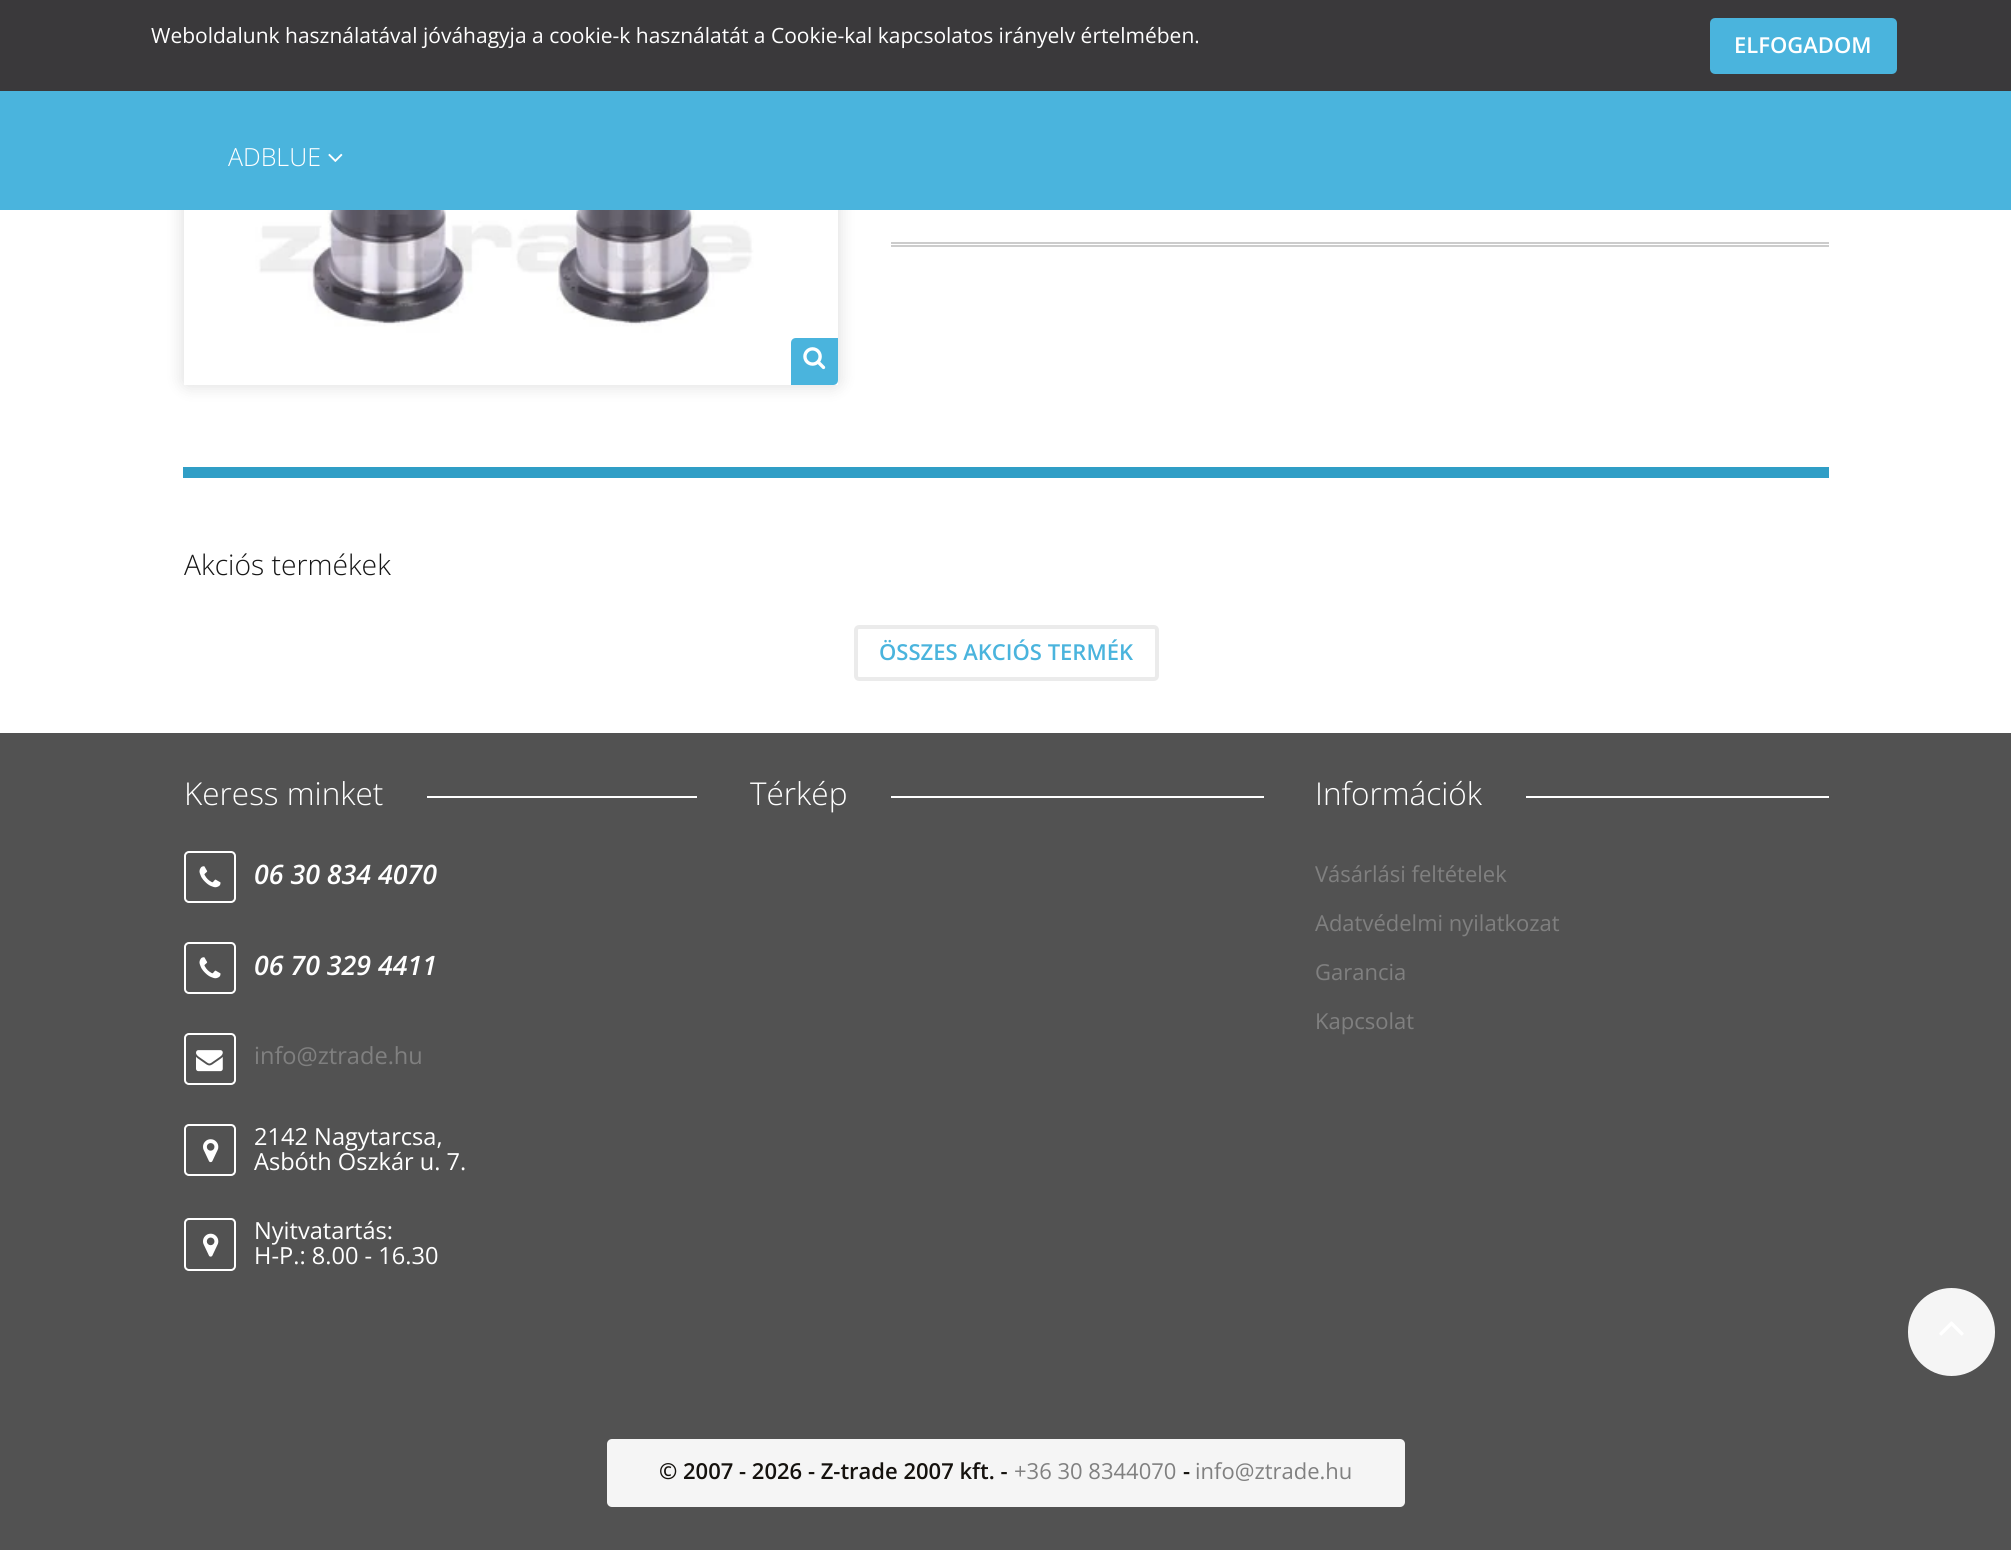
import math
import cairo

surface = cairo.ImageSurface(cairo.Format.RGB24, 2011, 1550)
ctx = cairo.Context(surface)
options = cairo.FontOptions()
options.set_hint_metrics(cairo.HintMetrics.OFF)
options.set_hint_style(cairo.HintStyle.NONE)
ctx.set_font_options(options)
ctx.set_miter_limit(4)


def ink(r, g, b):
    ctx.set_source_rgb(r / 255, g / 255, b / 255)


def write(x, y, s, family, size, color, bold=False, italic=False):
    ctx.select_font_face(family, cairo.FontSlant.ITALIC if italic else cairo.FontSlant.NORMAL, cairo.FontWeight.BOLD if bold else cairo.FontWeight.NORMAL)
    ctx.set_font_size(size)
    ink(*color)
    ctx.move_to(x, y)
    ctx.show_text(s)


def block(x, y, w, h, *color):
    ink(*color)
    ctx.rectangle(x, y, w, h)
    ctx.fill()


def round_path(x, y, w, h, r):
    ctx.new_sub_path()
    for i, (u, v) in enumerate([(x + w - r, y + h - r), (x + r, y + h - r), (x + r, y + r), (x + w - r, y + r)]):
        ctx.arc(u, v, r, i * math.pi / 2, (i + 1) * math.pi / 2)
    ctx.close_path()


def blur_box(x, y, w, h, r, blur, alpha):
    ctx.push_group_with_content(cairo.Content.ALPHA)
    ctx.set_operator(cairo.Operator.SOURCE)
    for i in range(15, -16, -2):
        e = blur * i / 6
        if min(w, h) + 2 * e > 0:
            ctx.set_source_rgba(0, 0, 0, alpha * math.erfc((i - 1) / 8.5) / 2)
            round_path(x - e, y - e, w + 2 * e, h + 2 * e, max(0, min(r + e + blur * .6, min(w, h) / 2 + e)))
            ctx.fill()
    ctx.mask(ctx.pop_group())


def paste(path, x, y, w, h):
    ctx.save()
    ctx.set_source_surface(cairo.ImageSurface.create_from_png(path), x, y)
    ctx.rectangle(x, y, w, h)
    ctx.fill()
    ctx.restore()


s1 = dict(family="Open Sans", size=21, color=(255, 255, 255))
s2 = dict(family="Open Sans SemiBold", size=22, color=(255, 255, 255))
s3 = dict(family="Open Sans Light", size=25, color=(255, 255, 255))
s4 = dict(family="Open Sans Light", size=28.25, color=(23, 23, 23))
s5 = dict(family="Open Sans SemiBold", size=22, color=(74, 180, 221))
s6 = dict(family="Open Sans Light", size=31.5, color=(255, 255, 255))
s7 = dict(family="Open Sans SemiBold", size=26.75, color=(255, 255, 255), italic=True)
s8 = dict(family="Open Sans", size=23.6, color=(128, 128, 128))
s9 = dict(family="Open Sans", size=23.6, color=(255, 255, 255))
s10 = dict(family="Open Sans", size=22, color=(128, 128, 128))
s11 = dict(family="Open Sans SemiBold", size=22, color=(21, 18, 14))

ink(255, 255, 255)
ctx.paint()
ink(0, 0, 0)
blur_box(180, -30, 662, 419, 9, 7, 0.1)
block(0, 0, 2011, 91, 58, 57, 59)
write(151, 43, "Weboldalunk használatával jóváhagyja a cookie-k használatát a Cookie-kal kapcsolatos irányelv értelmében.", **s1)
ink(74, 180, 221)
round_path(1712, 20, 183, 52, 3)
ctx.fill_preserve()
ctx.set_line_width(4)
ctx.stroke()
write(1734, 53, "ELFOGADOM", **s2)
paste("pic1.png", 184, 210, 654, 175)
ink(74, 180, 221)
ctx.new_path()
ctx.move_to(796, 338)
ctx.line_to(838, 338)
ctx.line_to(838, 380)
ctx.curve_to(838, 383, 836, 385, 833, 385)
ctx.line_to(791, 385)
ctx.line_to(791, 343)
ctx.curve_to(791, 340, 793, 338, 796, 338)
ctx.close_path()
ctx.fill()
paste("pic2.png", 803, 347, 23, 23)
block(891, 242, 938, 2, 204, 204, 204)
block(891, 245, 938, 2, 204, 204, 204)
block(0, 91, 2011, 119, 74, 180, 221)
write(228, 166, "ADBLUE", **s3)
paste("pic3.png", 328, 153, 15, 9)
block(183, 467, 1646, 11, 48, 158, 198)
write(184, 575, "Akciós termékek", **s4)
round_path(856, 627, 301, 52, 3)
ink(235, 235, 235)
ctx.stroke()
write(879, 660, "ÖSSZES AKCIÓS TERMÉK", **s5)
block(0, 733, 2011, 817, 82, 82, 82)
write(184, 805, "Keress minket", **s6)
block(427, 796, 270, 2, 255, 255, 255)
round_path(185, 852, 50, 50, 4)
ctx.set_line_width(2)
ctx.stroke()
paste("pic4.png", 199, 866, 22, 22)
write(254, 884, "06 30 834 4070", **s7)
round_path(185, 943, 50, 50, 4)
ctx.stroke()
paste("pic4.png", 199, 957, 22, 22)
write(254, 975, "06 70 329 4411", **s7)
round_path(185, 1034, 50, 50, 4)
ctx.stroke()
paste("pic5.png", 196, 1050, 27, 22)
write(254, 1064, "info@ztrade.hu", **s8)
round_path(185, 1125, 50, 50, 4)
ink(255, 255, 255)
ctx.stroke()
paste("pic6.png", 203, 1139, 16, 24)
write(254, 1145, "2142 Nagytarcsa,", **s9)
write(254, 1170, "Asbóth Oszkár u. 7.", **s9)
round_path(185, 1219, 50, 51, 4)
ctx.stroke()
paste("pic7.png", 203, 1233, 16, 24)
write(254, 1239, "Nyitvatartás:", **s9)
write(254, 1264, "H-P.: 8.00 - 16.30", **s9)
write(750, 805, "Térkép", **s6)
block(891, 796, 373, 2, 255, 255, 255)
write(1315, 805, "Információk", **s6)
block(1526, 796, 303, 2, 255, 255, 255)
write(1315, 882, "Vásárlási feltételek", **s10)
write(1315, 931, "Adatvédelmi nyilatkozat", **s10)
write(1315, 980, "Garancia", **s10)
write(1315, 1029, "Kapcsolat", **s10)
ink(245, 245, 245)
round_path(607, 1439, 798, 68, 5)
ctx.fill()
write(659, 1479, "© 2007 - 2026 - Z-trade 2007 kft. -", **s11)
write(1014, 1479, "+36 30 8344070", **s10)
write(1183, 1479, "-", **s11)
write(1195, 1479, "info@ztrade.hu", **s10)
ink(245, 245, 245)
round_path(1908, 1288, 87, 88, 43.5)
ctx.fill()
paste("pic8.png", 1939, 1321, 25, 15)
surface.write_to_png("screenshot.png")
